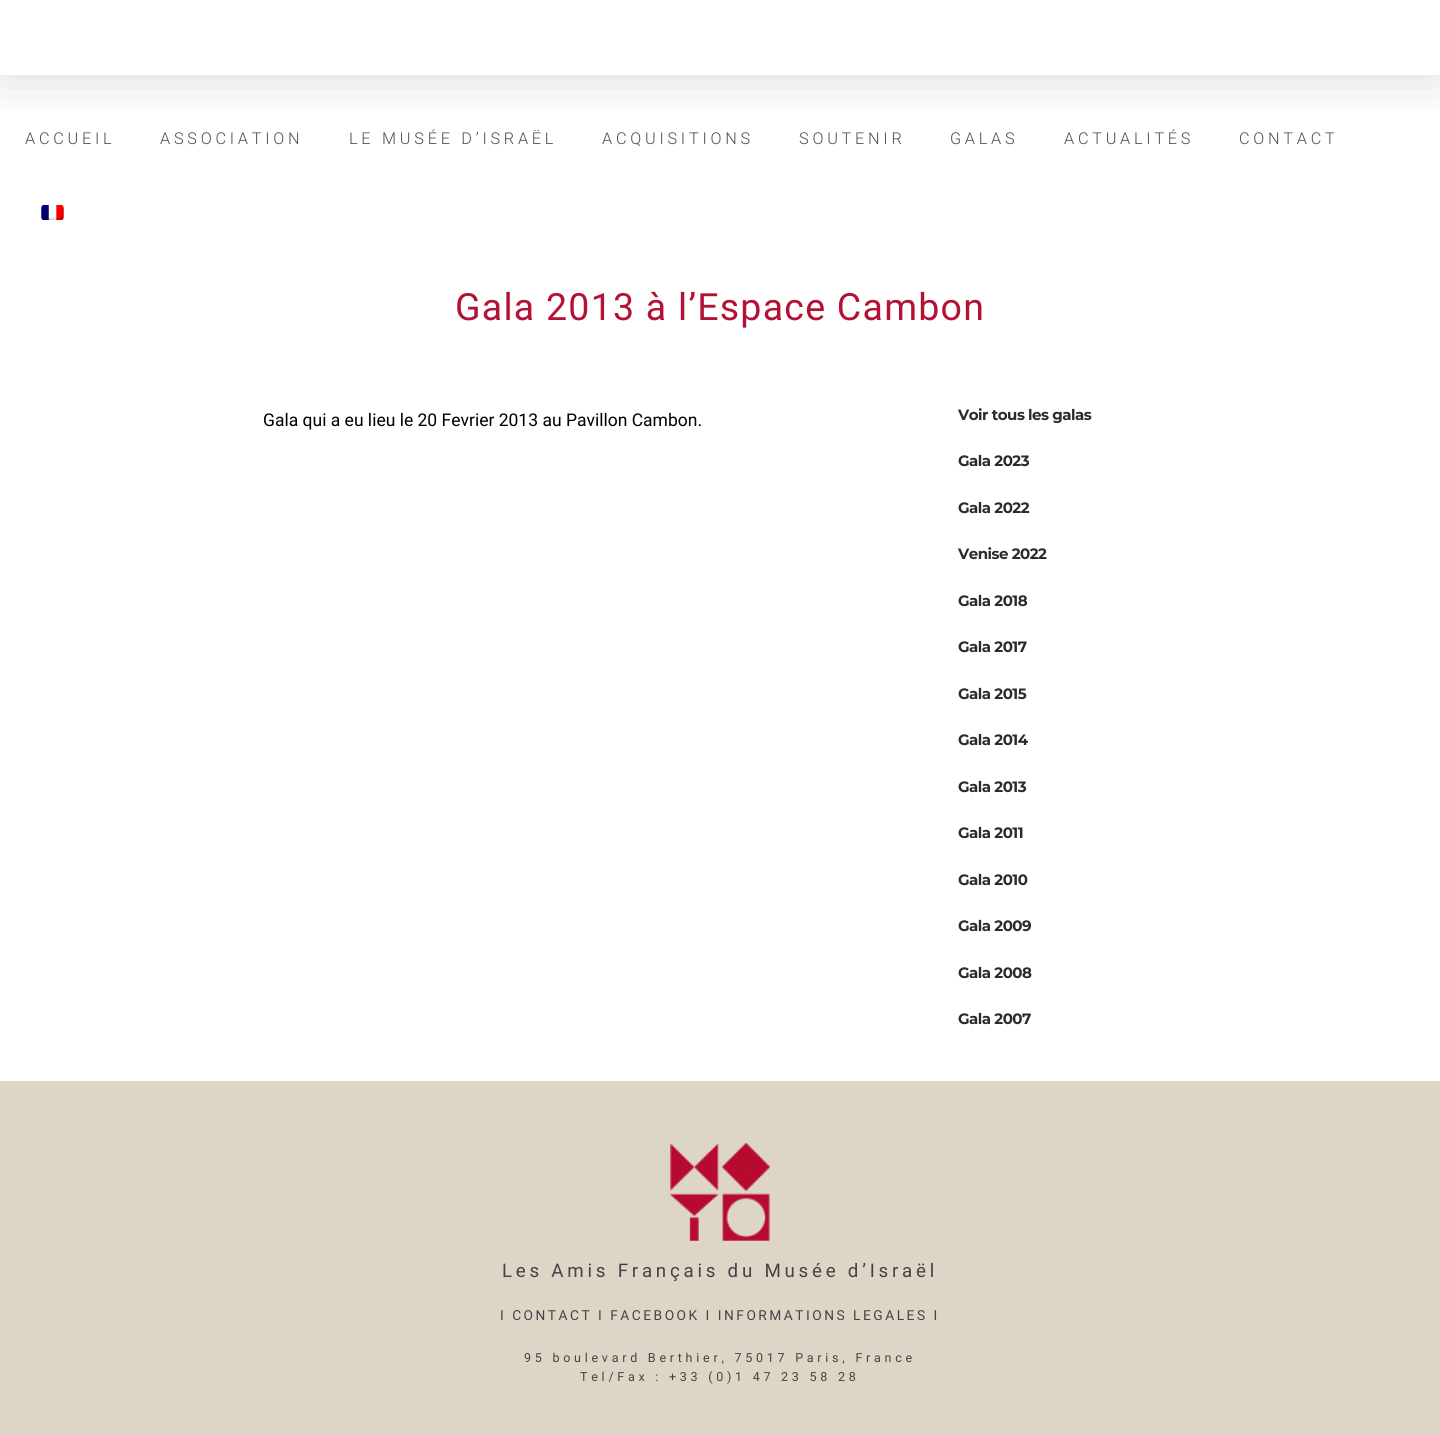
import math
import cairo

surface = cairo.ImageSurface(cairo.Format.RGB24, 1440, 1435)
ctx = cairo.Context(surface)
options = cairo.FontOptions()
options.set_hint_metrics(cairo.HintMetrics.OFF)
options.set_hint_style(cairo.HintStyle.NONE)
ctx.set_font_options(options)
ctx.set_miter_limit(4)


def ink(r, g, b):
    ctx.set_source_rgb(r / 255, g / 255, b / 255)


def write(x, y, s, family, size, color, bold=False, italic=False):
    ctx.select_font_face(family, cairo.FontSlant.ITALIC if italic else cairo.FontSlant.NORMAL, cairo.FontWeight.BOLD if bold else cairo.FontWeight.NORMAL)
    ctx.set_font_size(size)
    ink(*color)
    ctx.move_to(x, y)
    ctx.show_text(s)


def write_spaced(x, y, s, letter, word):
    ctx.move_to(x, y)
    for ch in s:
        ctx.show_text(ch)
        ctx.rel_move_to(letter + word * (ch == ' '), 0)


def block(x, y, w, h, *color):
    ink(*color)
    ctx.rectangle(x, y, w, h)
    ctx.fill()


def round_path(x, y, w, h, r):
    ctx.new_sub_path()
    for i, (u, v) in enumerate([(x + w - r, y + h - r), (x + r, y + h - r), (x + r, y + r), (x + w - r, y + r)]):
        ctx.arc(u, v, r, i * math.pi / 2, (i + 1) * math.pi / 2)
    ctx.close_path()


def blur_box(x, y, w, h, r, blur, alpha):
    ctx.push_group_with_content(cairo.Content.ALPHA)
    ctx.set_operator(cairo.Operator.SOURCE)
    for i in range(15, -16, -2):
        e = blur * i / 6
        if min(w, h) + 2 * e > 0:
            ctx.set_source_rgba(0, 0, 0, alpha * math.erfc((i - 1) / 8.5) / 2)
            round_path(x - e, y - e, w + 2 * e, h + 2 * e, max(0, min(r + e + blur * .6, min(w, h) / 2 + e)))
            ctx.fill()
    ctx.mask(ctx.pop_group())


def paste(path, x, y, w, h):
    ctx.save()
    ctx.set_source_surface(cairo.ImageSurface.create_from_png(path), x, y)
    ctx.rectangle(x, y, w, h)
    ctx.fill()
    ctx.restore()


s1 = dict(family="Roboto", size=17.5, color=(0, 0, 0))

ink(255, 255, 255)
ctx.paint()
ctx.save()
ctx.rectangle(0, 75, 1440, 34)
ctx.clip()
ink(0, 0, 0)
blur_box(0, 0, 1440, 75, 0, 31, 0.15)
ctx.restore()
ctx.select_font_face("Roboto Light")
ctx.set_font_size(16.25)
ink(82, 75, 75)
write_spaced(25, 144, "ACCUEIL", 3.75, 0)
write_spaced(160, 144, "ASSOCIATION", 3.75, 0)
write_spaced(349, 144, "LE MUSÉE D’ISRAËL", 3.75, 0)
write_spaced(602, 144, "ACQUISITIONS", 3.75, 0)
write_spaced(799, 144, "SOUTENIR", 3.75, 0)
write_spaced(950, 144, "GALAS", 3.75, 0)
write_spaced(1064, 144, "ACTUALITÉS", 3.75, 0)
write_spaced(1239, 144, "CONTACT", 3.75, 0)
paste("pic1.png", 41, 205, 23, 15)
ctx.select_font_face("Roboto")
ctx.set_font_size(37.5)
ink(181, 17, 52)
write_spaced(455, 320, "Gala 2013 à l’Espace Cambon", 1.25, 0)
write(263, 426, "Gala qui a eu lieu le 20 Fevrier 2013 au Pavillon Cambon.", **s1)
ctx.select_font_face("Montserrat", cairo.FontSlant.NORMAL, cairo.FontWeight.BOLD)
ctx.set_font_size(15)
ink(43, 43, 43)
write_spaced(958, 420, "Voir tous les galas", -0.5, 0)
write_spaced(958, 466, "Gala 2023", -0.5, 0)
write_spaced(958, 513, "Gala 2022", -0.5, 0)
write_spaced(958, 559, "Venise 2022", -0.5, 0)
write_spaced(958, 606, "Gala 2018", -0.5, 0)
write_spaced(958, 652, "Gala 2017", -0.5, 0)
write_spaced(958, 699, "Gala 2015", -0.5, 0)
write_spaced(958, 745, "Gala 2014", -0.5, 0)
write_spaced(958, 792, "Gala 2013", -0.5, 0)
write_spaced(958, 838, "Gala 2011", -0.5, 0)
write_spaced(958, 885, "Gala 2010", -0.5, 0)
write_spaced(958, 931, "Gala 2009", -0.5, 0)
write_spaced(958, 978, "Gala 2008", -0.5, 0)
write_spaced(958, 1024, "Gala 2007", -0.5, 0)
block(0, 1081, 1440, 354, 221, 214, 199)
paste("pic2.png", 670, 1143, 100, 98)
ctx.select_font_face("Roboto")
ctx.set_font_size(18.75)
ink(68, 68, 68)
write_spaced(502, 1277, "Les Amis Français du Musée d’Israël", 3.75, 0)
ctx.set_font_size(13.75)
write_spaced(500, 1320, "I CONTACT I FACEBOOK I INFORMATIONS LEGALES I", 2.5, 0)
ctx.set_font_size(12.5)
write_spaced(524, 1362, "95 boulevard Berthier, 75017 Paris, France", 3.75, 0)
write_spaced(580, 1381, "Tel/Fax : +33 (0)1 47 23 58 28", 3.75, 0)
surface.write_to_png("screenshot.png")
